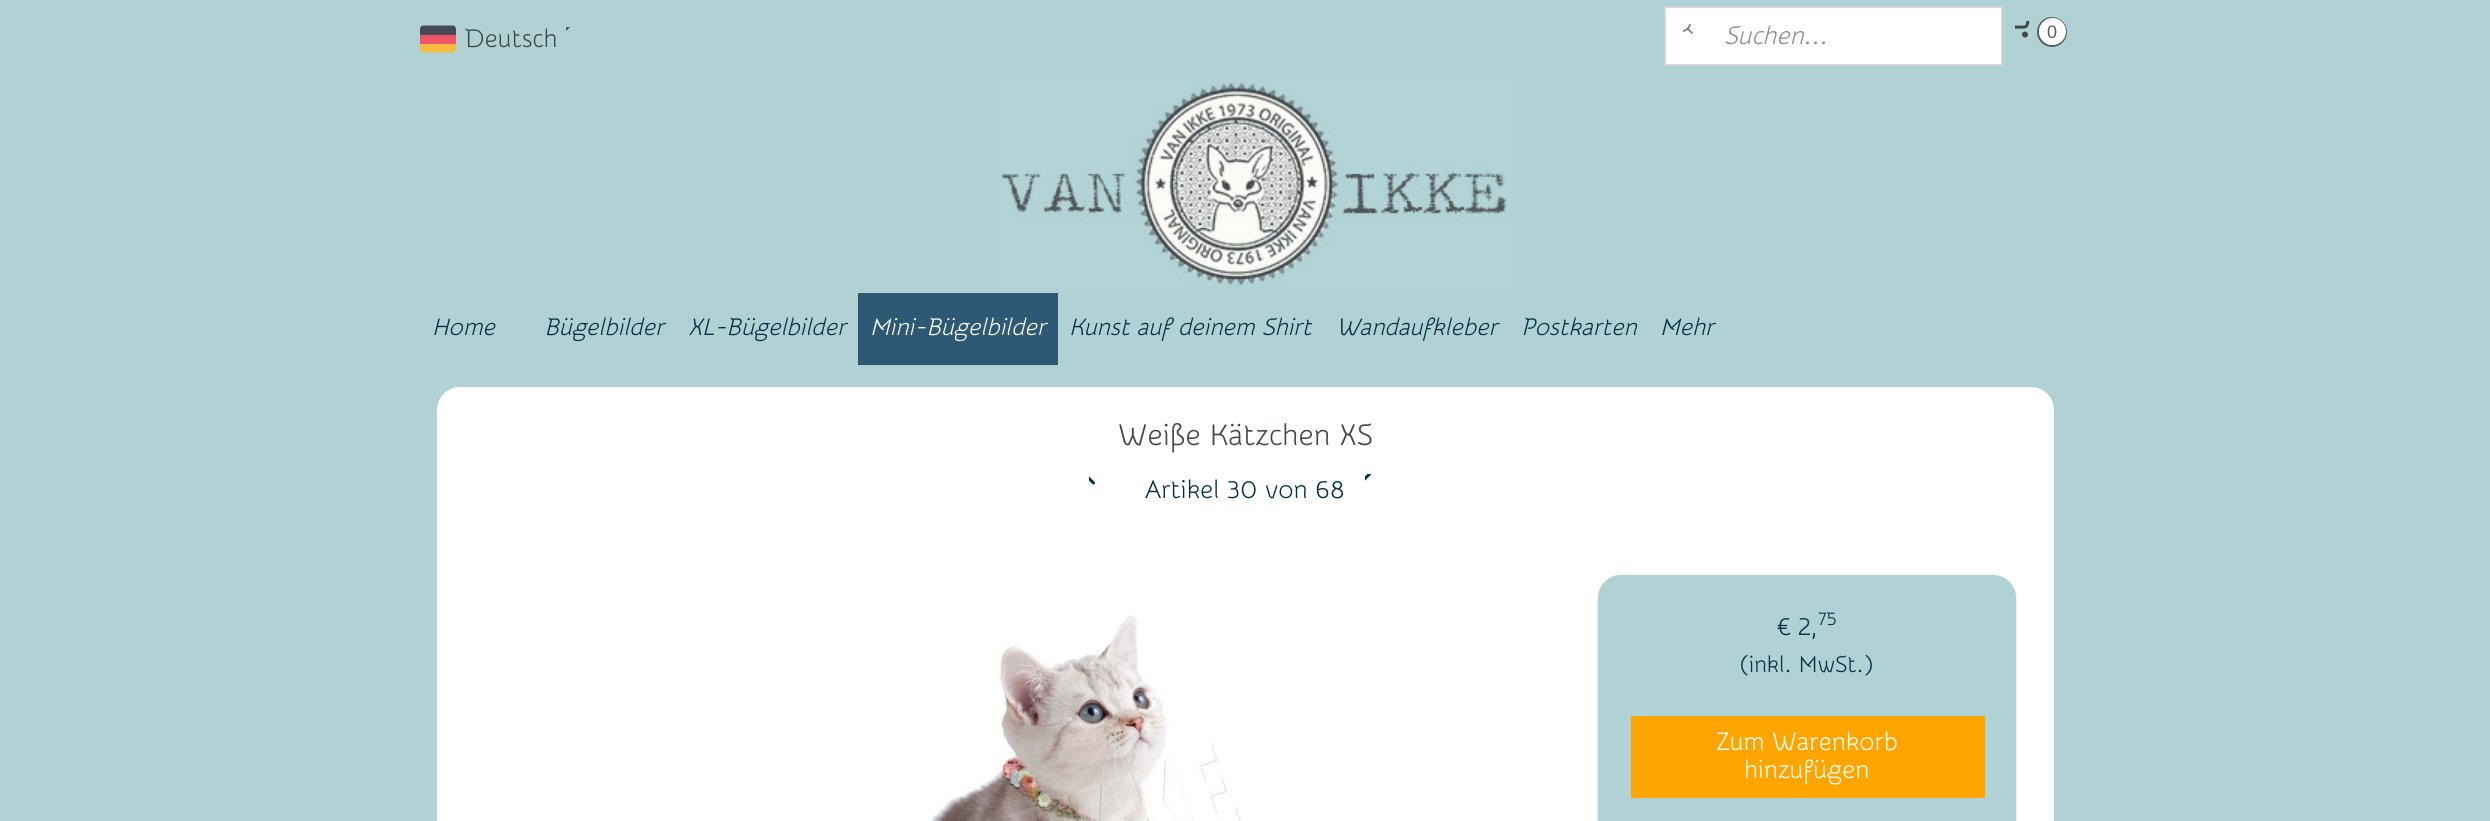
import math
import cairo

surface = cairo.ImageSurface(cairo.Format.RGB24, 2490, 821)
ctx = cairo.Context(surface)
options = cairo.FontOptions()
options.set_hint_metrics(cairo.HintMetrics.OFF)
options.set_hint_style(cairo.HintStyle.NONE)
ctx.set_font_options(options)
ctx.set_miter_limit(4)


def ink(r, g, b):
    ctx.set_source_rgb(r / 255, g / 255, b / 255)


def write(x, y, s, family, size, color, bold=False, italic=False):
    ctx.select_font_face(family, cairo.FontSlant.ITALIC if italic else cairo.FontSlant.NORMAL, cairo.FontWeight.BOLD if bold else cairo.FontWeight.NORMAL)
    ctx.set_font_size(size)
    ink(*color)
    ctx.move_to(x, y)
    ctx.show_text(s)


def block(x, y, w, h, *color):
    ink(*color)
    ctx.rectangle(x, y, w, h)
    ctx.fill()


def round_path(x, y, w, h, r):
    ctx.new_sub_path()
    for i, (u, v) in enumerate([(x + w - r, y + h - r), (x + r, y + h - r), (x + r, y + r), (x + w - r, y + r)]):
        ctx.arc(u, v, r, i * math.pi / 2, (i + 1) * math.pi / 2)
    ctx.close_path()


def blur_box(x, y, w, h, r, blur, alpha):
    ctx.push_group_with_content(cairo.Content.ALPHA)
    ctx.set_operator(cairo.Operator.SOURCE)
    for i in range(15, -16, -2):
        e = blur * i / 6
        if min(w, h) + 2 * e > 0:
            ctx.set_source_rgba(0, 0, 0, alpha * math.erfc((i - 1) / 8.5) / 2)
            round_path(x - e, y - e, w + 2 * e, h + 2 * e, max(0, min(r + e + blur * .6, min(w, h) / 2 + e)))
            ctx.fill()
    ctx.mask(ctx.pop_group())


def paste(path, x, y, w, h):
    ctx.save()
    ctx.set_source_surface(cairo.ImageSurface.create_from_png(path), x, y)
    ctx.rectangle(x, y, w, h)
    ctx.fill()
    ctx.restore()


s1 = dict(family="Snippet", size=25.5, color=(65, 71, 73))
s2 = dict(family="Snippet", size=25.5, color=(137, 140, 145), italic=True)
s3 = dict(family="Liberation Sans", size=18, color=(87, 91, 98))
s4 = dict(family="Snippet", size=24, color=(2, 48, 71), italic=True)
s5 = dict(family="Snippet", size=24, color=(255, 255, 255), italic=True)
s6 = dict(family="Snippet", size=30, color=(65, 71, 73))
s7 = dict(family="Snippet", size=25.5, color=(2, 48, 71))
s8 = dict(family="Snippet", size=19, color=(2, 48, 71))
s9 = dict(family="Snippet", size=23, color=(2, 48, 71))
s10 = dict(family="Snippet", size=25.5, color=(255, 255, 255))

ink(177, 210, 213)
ctx.paint()
paste("pic1.png", 420, 25, 36, 28)
write(465, 47, "Deutsch", **s1)
paste("pic2.png", 566, 27, 4, 4)
ink(255, 255, 255)
ctx.rectangle(1665, 7, 337, 58)
ctx.fill_preserve()
ink(211, 213, 217)
ctx.stroke()
paste("pic3.png", 1683, 24, 10, 10)
write(1724, 44, "Suchen...", **s2)
paste("pic4.png", 2015, 21, 15, 17)
ctx.arc(2052, 32, 14, 0, 2 * math.pi)
ink(87, 91, 98)
ctx.stroke()
ink(255, 255, 255)
ctx.arc(2052.5, 31.5, 13.5, 0, 2 * math.pi)
ctx.fill()
write(2047, 38, "0", **s3)
paste("pic5.png", 999, 78, 516, 208)
write(432, 335, "Home", **s4)
write(544, 335, "Bügelbilder", **s4)
write(688, 335, "XL-Bügelbilder", **s4)
block(858, 293, 200, 72, 46, 89, 117)
write(870, 335, "Mini-Bügelbilder", **s5)
write(1069, 335, "Kunst auf deinem Shirt", **s4)
write(1336, 335, "Wandaufkleber", **s4)
write(1521, 335, "Postkarten", **s4)
write(1660, 335, "Mehr", **s4)
ink(255, 255, 255)
round_path(437, 387, 1617, 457, 23)
ctx.fill()
write(1118, 445, "Weiße Kätzchen XS", **s6)
paste("pic6.png", 1089, 476, 6, 9)
write(1145, 498, "Artikel 30 von 68", **s7)
paste("pic7.png", 1365, 474, 6, 7)
paste("pic8.png", 927, 615, 314, 206)
ink(0, 0, 0)
blur_box(1598, 576, 418, 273, 23, 1.5, 0.15)
ink(177, 210, 213)
round_path(1598, 575, 418, 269, 23)
ctx.fill()
write(1777, 635, "€ 2,", **s7)
write(1818, 625, "75", **s8)
write(1740, 672, "(inkl. MwSt.)", **s9)
block(1631, 716, 354, 82, 255, 165, 0)
write(1716, 750, "Zum Warenkorb", **s10)
write(1744, 778, "hinzufügen", **s10)
surface.write_to_png("screenshot.png")
